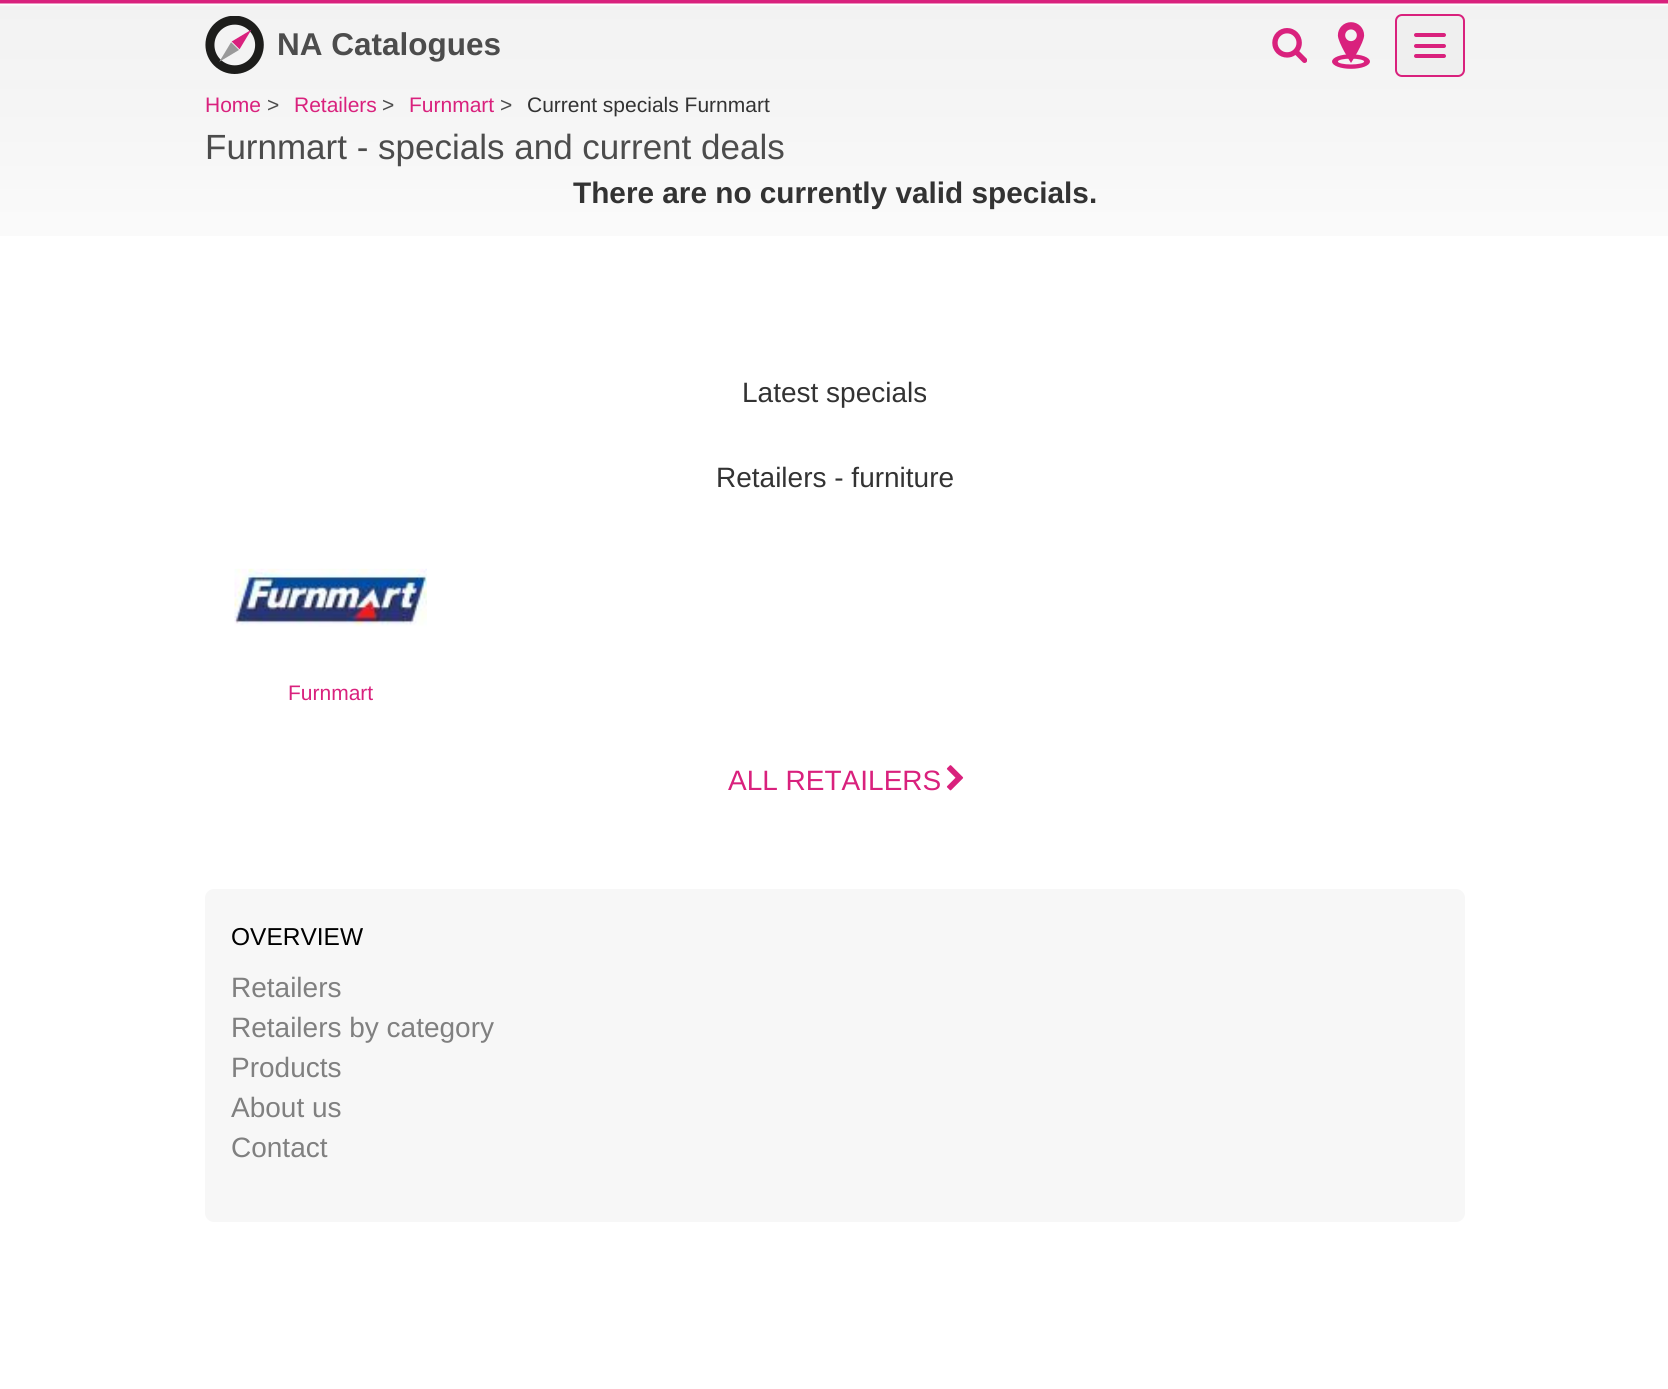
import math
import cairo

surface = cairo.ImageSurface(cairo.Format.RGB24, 1668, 1389)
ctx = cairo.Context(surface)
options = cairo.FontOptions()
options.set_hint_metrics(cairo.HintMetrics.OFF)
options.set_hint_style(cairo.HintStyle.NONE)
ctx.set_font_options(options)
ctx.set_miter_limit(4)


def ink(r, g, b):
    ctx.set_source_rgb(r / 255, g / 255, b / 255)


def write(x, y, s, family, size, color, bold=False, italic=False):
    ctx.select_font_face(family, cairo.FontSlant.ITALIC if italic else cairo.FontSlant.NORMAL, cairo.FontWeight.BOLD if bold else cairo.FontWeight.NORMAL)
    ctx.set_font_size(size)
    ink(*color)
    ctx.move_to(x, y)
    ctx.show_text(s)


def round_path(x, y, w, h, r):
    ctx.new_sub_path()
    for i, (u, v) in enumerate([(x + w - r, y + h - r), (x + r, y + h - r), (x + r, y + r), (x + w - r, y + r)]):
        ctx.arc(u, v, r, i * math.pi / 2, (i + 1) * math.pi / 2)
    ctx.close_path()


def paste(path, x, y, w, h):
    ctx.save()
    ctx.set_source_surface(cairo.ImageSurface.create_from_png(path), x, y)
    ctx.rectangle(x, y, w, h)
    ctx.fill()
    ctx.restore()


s1 = dict(family="Liberation Sans", size=31.5, color=(76, 76, 76), bold=True)
s2 = dict(family="Liberation Sans", size=21, color=(217, 33, 125))
s3 = dict(family="Liberation Sans", size=21, color=(76, 76, 76))
s4 = dict(family="Liberation Sans", size=21, color=(51, 51, 51))
s5 = dict(family="Liberation Sans", size=35, color=(76, 76, 76))
s6 = dict(family="Liberation Sans", size=29.75, color=(51, 51, 51), bold=True)
s7 = dict(family="Liberation Sans", size=28, color=(51, 51, 51))
s8 = dict(family="Liberation Sans", size=28, color=(217, 33, 125))
s9 = dict(family="Liberation Sans", size=24.5, color=(0, 0, 0))
s10 = dict(family="Liberation Sans", size=28, color=(128, 128, 128))

ink(255, 255, 255)
ctx.paint()
paste("pic1.png", 0, 0, 1668, 236)
paste("pic2.png", 205, 16, 59, 58)
write(277, 55, "NA Catalogues", **s1)
paste("pic3.png", 1272, 28, 35, 35)
paste("pic4.png", 1332, 22, 38, 47)
ink(239, 239, 239)
round_path(1396, 15, 68, 61, 6)
ctx.fill_preserve()
ink(217, 33, 125)
ctx.stroke()
round_path(1414, 33, 32, 4, 2)
ctx.fill()
round_path(1414, 44, 32, 4, 2)
ctx.fill()
round_path(1414, 54, 32, 4, 2)
ctx.fill()
write(205, 112, "Home", **s2)
write(267, 112, ">", **s3)
write(294, 112, "Retailers", **s2)
write(382, 112, ">", **s3)
write(409, 112, "Furnmart", **s2)
write(500, 112, ">", **s3)
write(527, 112, "Current specials Furnmart", **s4)
write(205, 159, "Furnmart - specials and current deals", **s5)
write(573, 203, "There are no currently valid specials.", **s6)
write(742, 402, "Latest specials", **s7)
write(716, 487, "Retailers - furniture", **s7)
paste("pic5.png", 234, 568, 193, 59)
write(288, 700, "Furnmart", **s2)
write(728, 790, "ALL RETAILERS", **s8)
paste("pic6.png", 946, 765, 18, 26)
ink(247, 247, 247)
round_path(205, 889, 1260, 333, 9)
ctx.fill()
write(231, 945, "OVERVIEW", **s9)
write(231, 997, "Retailers", **s10)
write(231, 1037, "Retailers by category", **s10)
write(231, 1077, "Products", **s10)
write(231, 1117, "About us", **s10)
write(231, 1157, "Contact", **s10)
surface.write_to_png("screenshot.png")
